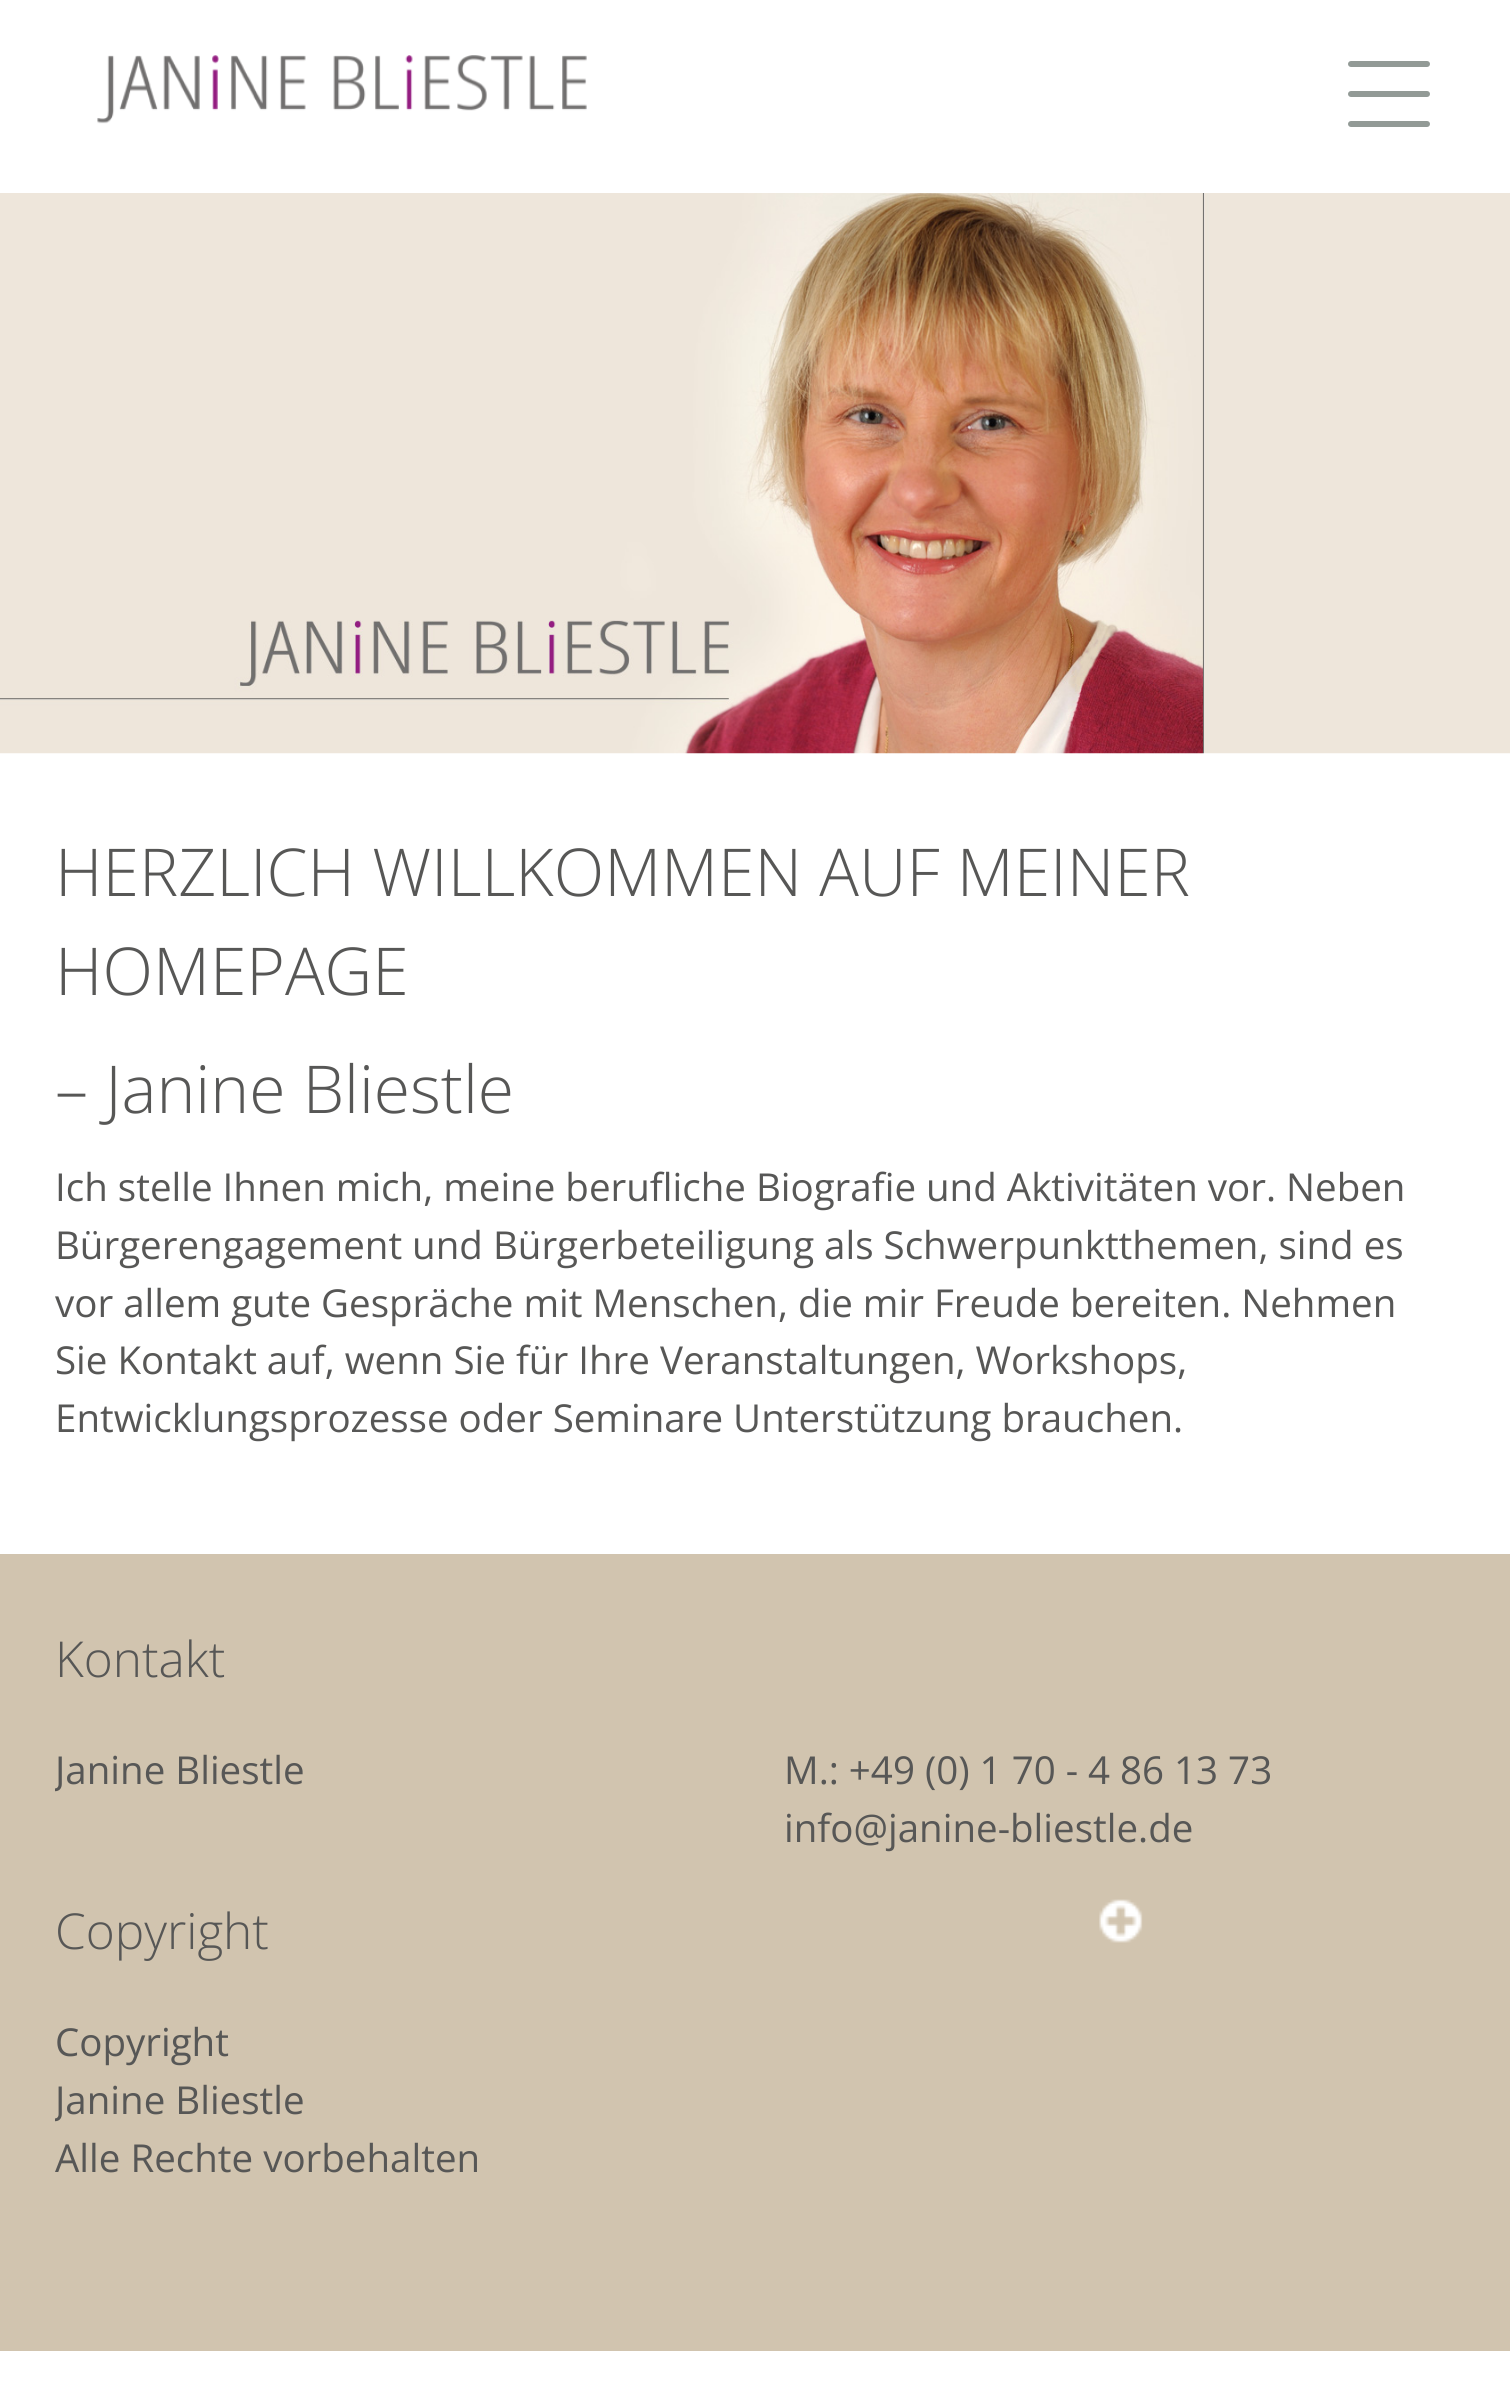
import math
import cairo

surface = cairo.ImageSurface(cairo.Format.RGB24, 1510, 2406)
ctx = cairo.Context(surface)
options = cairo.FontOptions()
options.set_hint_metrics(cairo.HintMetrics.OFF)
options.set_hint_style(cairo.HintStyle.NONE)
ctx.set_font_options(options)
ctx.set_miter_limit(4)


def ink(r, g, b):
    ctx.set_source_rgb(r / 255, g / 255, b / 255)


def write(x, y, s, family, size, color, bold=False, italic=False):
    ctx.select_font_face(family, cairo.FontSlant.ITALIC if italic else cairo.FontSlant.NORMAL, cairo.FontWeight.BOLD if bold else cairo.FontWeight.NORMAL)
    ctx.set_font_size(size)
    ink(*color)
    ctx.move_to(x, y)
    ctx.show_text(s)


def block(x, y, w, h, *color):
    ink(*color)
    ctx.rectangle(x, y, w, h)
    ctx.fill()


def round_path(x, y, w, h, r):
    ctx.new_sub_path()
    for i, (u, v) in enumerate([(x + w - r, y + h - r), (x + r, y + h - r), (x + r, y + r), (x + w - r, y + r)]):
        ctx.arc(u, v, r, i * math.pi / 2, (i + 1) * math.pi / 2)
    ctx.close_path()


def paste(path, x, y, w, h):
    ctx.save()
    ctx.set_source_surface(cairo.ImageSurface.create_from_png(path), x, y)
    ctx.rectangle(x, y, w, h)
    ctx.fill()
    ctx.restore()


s1 = dict(family="Open Sans Light", size=66, color=(87, 87, 86))
s2 = dict(family="Open Sans", size=38.5, color=(87, 87, 86))
s3 = dict(family="Open Sans Light", size=49.5, color=(87, 87, 86))

ink(255, 255, 255)
ctx.paint()
paste("pic1.png", 97, 55, 490, 69)
ink(146, 154, 150)
round_path(1348, 91, 82, 6, 3)
ctx.fill()
round_path(1348, 61, 82, 6, 3)
ctx.fill()
round_path(1348, 121, 82, 6, 3)
ctx.fill()
paste("pic2.png", 0, 193, 1510, 561)
write(55, 896, "HERZLICH WILLKOMMEN AUF MEINER", **s1)
write(55, 995, "HOMEPAGE", **s1)
write(55, 1113, "– Janine Bliestle", **s1)
write(55, 1201, "Ich stelle Ihnen mich, meine berufliche Biografie und Aktivitäten vor. Neben", **s2)
write(55, 1259, "Bürgerengagement und Bürgerbeteiligung als Schwerpunktthemen, sind es", **s2)
write(55, 1317, "vor allem gute Gespräche mit Menschen, die mir Freude bereiten. Nehmen", **s2)
write(55, 1374, "Sie Kontakt auf, wenn Sie für Ihre Veranstaltungen, Workshops,", **s2)
write(55, 1432, "Entwicklungsprozesse oder Seminare Unterstützung brauchen.", **s2)
block(0, 1554, 1510, 797, 209, 196, 175)
write(55, 1677, "Kontakt", **s3)
ctx.save()
ctx.rectangle(55, 1741, 674, 96)
ctx.clip()
write(55, 1784, "Janine Bliestle", **s2)
ctx.restore()
write(784, 1784, "M.: +49 (0) 1 70 - 4 86 13 73", **s2)
write(784, 1842, "info@janine-bliestle.de", **s2)
write(55, 1949, "Copyright", **s3)
write(55, 2056, "Copyright", **s2)
ctx.save()
ctx.rectangle(55, 2013, 674, 270)
ctx.clip()
write(55, 2114, "Janine Bliestle", **s2)
ctx.restore()
write(55, 2172, "Alle Rechte vorbehalten", **s2)
paste("pic3.png", 1099, 1899, 44, 44)
surface.write_to_png("screenshot.png")
